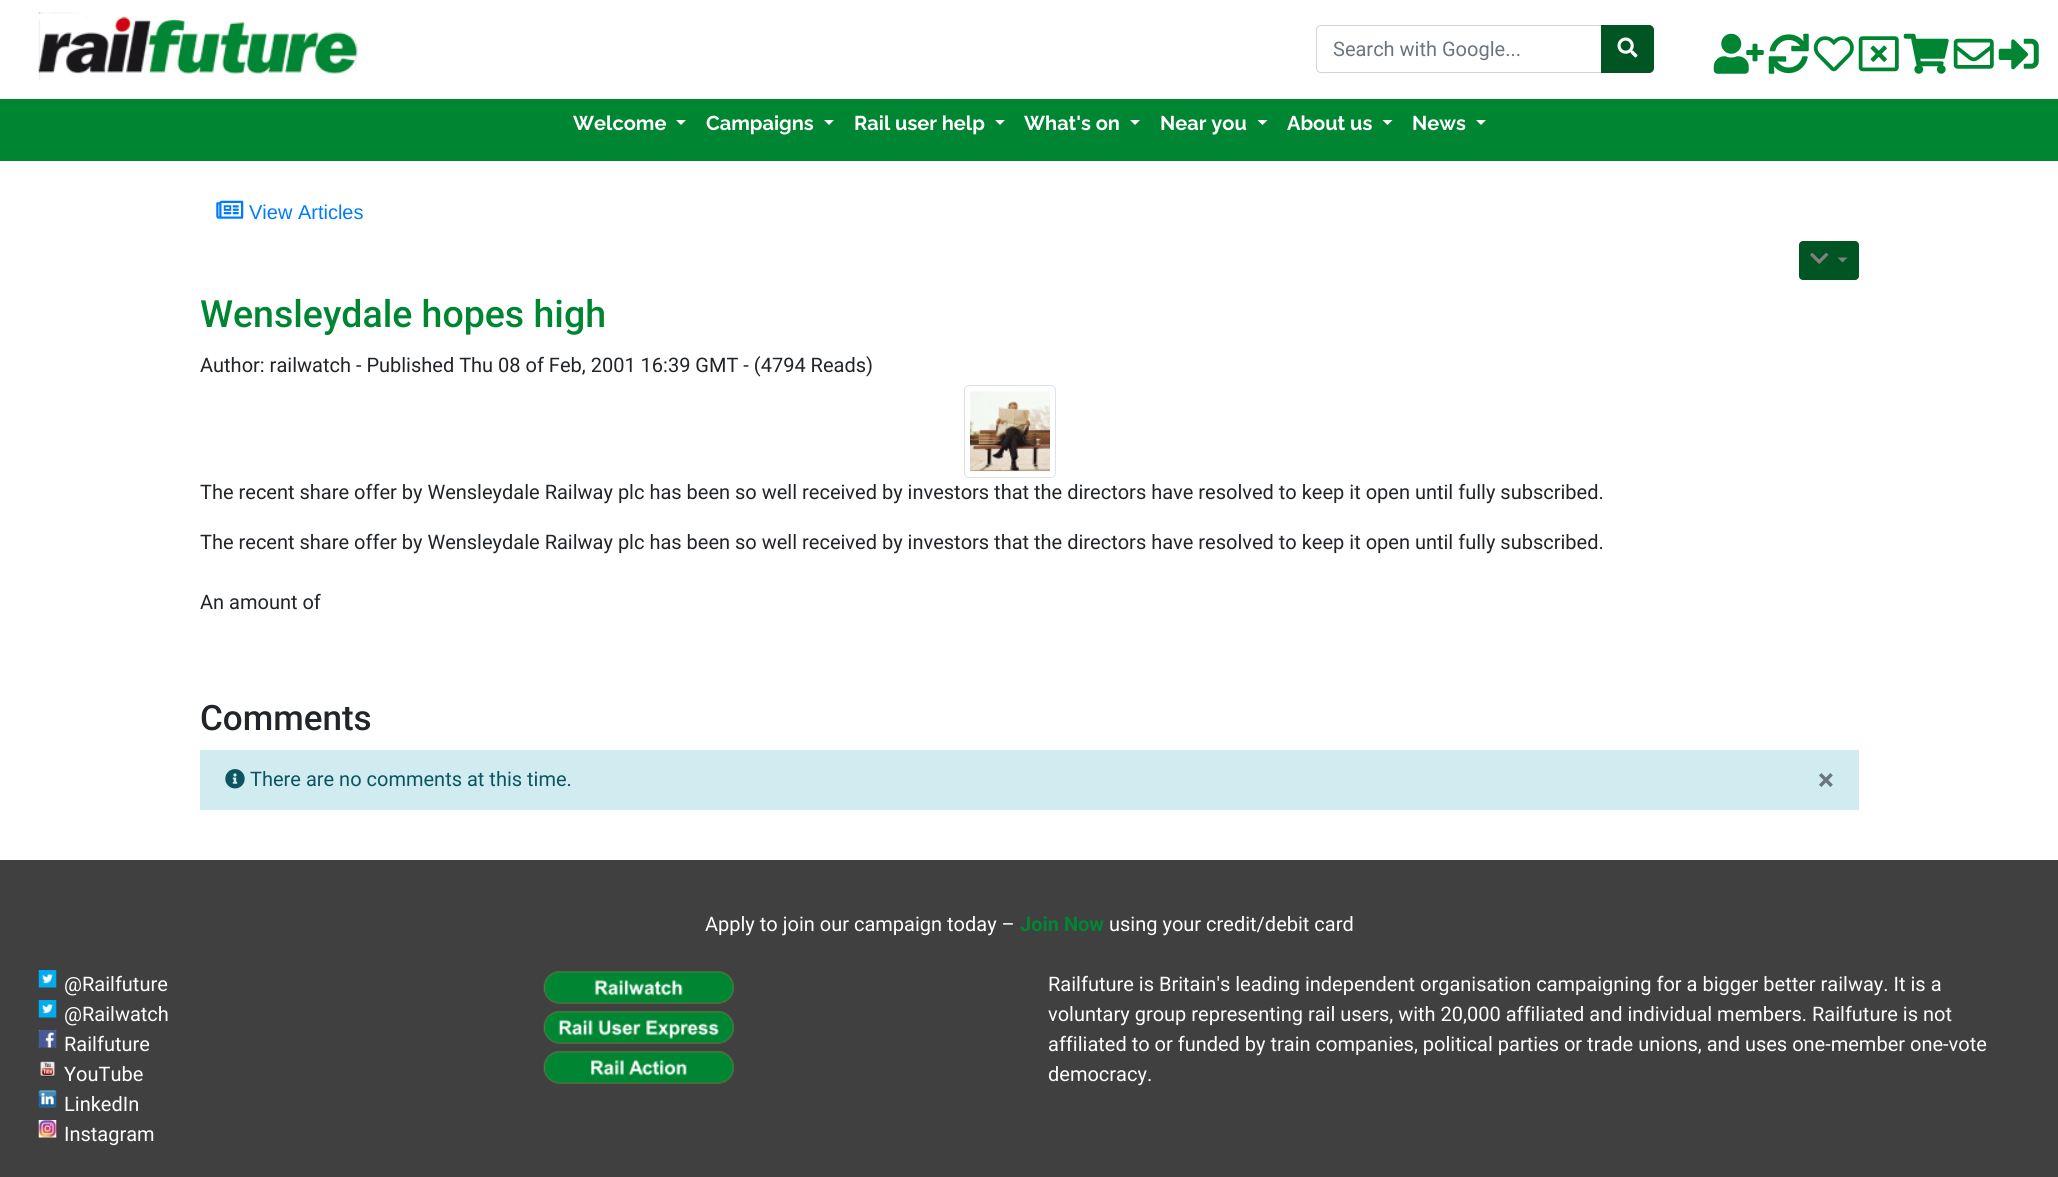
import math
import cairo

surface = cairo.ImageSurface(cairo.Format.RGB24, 2058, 1177)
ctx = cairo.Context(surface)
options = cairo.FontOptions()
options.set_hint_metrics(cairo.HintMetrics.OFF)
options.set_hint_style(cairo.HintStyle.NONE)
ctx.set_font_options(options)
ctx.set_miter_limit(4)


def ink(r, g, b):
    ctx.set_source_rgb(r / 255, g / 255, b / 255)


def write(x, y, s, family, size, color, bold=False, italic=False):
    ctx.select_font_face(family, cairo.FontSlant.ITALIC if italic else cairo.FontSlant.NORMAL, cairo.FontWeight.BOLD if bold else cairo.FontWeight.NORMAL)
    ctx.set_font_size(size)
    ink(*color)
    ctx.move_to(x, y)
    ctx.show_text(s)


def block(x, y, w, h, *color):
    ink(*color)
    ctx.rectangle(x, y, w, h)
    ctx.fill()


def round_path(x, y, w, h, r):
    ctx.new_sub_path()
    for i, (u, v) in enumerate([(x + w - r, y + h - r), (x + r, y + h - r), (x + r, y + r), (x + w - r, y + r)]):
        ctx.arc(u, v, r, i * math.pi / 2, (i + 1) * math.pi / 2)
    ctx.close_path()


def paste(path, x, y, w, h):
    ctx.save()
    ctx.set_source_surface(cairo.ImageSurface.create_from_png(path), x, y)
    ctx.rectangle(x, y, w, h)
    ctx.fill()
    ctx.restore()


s1 = dict(family="Roboto", size=20, color=(108, 117, 125))
s2 = dict(family="Raleway", size=20, color=(255, 255, 255), bold=True)
s3 = dict(family="Liberation Sans", size=20, color=(0, 123, 255))
s4 = dict(family="Roboto Medium", size=37.5, color=(0, 134, 51))
s5 = dict(family="Roboto", size=20, color=(33, 37, 41))
s6 = dict(family="Roboto Medium", size=35, color=(33, 37, 41))
s7 = dict(family="Roboto", size=20, color=(12, 84, 96))
s8 = dict(family="Roboto", size=30, color=(108, 117, 125), bold=True)
s9 = dict(family="Roboto", size=20, color=(255, 255, 255))
s10 = dict(family="Roboto", size=20, color=(0, 134, 51), bold=True)

ink(255, 255, 255)
ctx.paint()
paste("pic1.png", 38, 12, 320, 68)
ctx.new_path()
ctx.move_to(1321, 25.5)
ctx.line_to(1602.5, 25.5)
ctx.line_to(1602.5, 72.5)
ctx.line_to(1321, 72.5)
ctx.curve_to(1318.5, 72.5, 1316.5, 70.5, 1316.5, 68)
ctx.line_to(1316.5, 30)
ctx.curve_to(1316.5, 27.5, 1318.5, 25.5, 1321, 25.5)
ctx.close_path()
ink(206, 212, 218)
ctx.set_line_width(1)
ctx.stroke()
write(1333, 56, "Search with Google...", **s1)
ink(0, 85, 34)
ctx.new_path()
ctx.move_to(1601.5, 25.5)
ctx.line_to(1649, 25.5)
ctx.curve_to(1651.5, 25.5, 1653.5, 27.5, 1653.5, 30)
ctx.line_to(1653.5, 68)
ctx.curve_to(1653.5, 70.5, 1651.5, 72.5, 1649, 72.5)
ctx.line_to(1601.5, 72.5)
ctx.close_path()
ctx.fill_preserve()
ctx.stroke()
paste("pic2.png", 1617, 37, 21, 21)
paste("pic3.png", 1713, 33, 51, 41)
paste("pic4.png", 1768, 33, 41, 41)
paste("pic5.png", 1813, 36, 41, 36)
paste("pic6.png", 1858, 36, 41, 36)
paste("pic7.png", 1903, 33, 46, 41)
paste("pic8.png", 1953, 38, 41, 31)
paste("pic9.png", 1998, 38, 41, 32)
block(0, 99, 2058, 62, 0, 134, 51)
write(573, 130, "Welcome", **s2)
ctx.new_path()
ctx.move_to(676, 120)
ctx.line_to(686, 120)
ctx.line_to(681, 125)
ctx.close_path()
ctx.fill()
write(706, 130, "Campaigns", **s2)
ctx.new_path()
ctx.move_to(824, 120)
ctx.line_to(834, 120)
ctx.line_to(829, 125)
ctx.close_path()
ctx.fill()
write(854, 130, "Rail user help", **s2)
ctx.new_path()
ctx.move_to(995, 120)
ctx.line_to(1005, 120)
ctx.line_to(1000, 125)
ctx.close_path()
ctx.fill()
write(1024, 130, "What's on", **s2)
ctx.new_path()
ctx.move_to(1130, 120)
ctx.line_to(1140, 120)
ctx.line_to(1135, 125)
ctx.close_path()
ctx.fill()
write(1160, 130, "Near you", **s2)
ctx.new_path()
ctx.move_to(1257.5, 120)
ctx.line_to(1267.5, 120)
ctx.line_to(1262.5, 125)
ctx.close_path()
ctx.fill()
write(1287, 130, "About us", **s2)
ctx.new_path()
ctx.move_to(1382.5, 120)
ctx.line_to(1392.5, 120)
ctx.line_to(1387.5, 125)
ctx.close_path()
ctx.fill()
write(1412, 130, "News", **s2)
ctx.new_path()
ctx.move_to(1476, 120)
ctx.line_to(1486, 120)
ctx.line_to(1481, 125)
ctx.close_path()
ctx.fill()
paste("pic10.png", 216, 200, 28, 19)
write(249, 219, "View Articles", **s3)
ink(0, 85, 34)
round_path(1799.5, 241.5, 59, 38, 3.5)
ctx.fill_preserve()
ctx.stroke()
paste("pic11.png", 1810, 253, 19, 11)
ink(128, 128, 128)
ctx.new_path()
ctx.move_to(1837.5, 257.5)
ctx.line_to(1847.5, 257.5)
ctx.line_to(1842.5, 262.5)
ctx.close_path()
ctx.fill()
write(200, 327, "Wensleydale hopes high", **s4)
write(200, 372, "Author: railwatch - Published Thu 08 of Feb, 2001 16:39 GMT - (4794 Reads)", **s5)
round_path(964.5, 385.5, 91, 92, 4.5)
ink(222, 226, 230)
ctx.stroke()
paste("pic12.png", 970, 391, 80, 81)
write(200, 499, "The recent share offer by Wensleydale Railway plc has been so well received by investors that the directors have resolved to keep it open until fully subscribed.", **s5)
write(200, 549, "The recent share offer by Wensleydale Railway plc has been so well received by investors that the directors have resolved to keep it open until fully subscribed.", **s5)
write(200, 609, "An amount of", **s5)
write(200, 730, "Comments", **s6)
block(200, 750, 1659, 60, 209, 236, 241)
paste("pic13.png", 225, 769, 20, 20)
write(250, 786, "There are no comments at this time.", **s7)
write(1818, 790, "×", **s8)
block(0, 860, 2058, 317, 64, 64, 64)
write(705, 931, "Apply to join our campaign today –", **s9)
write(1020, 931, "Join Now", **s10)
write(1109, 931, "using your credit/debit card", **s9)
paste("pic14.png", 38, 970, 19, 18)
write(64, 991, "@Railfuture", **s9)
paste("pic14.png", 38, 1000, 19, 18)
write(64, 1021, "@Railwatch", **s9)
paste("pic15.png", 38, 1030, 19, 18)
write(64, 1051, "Railfuture", **s9)
paste("pic16.png", 40, 1061, 15, 16)
write(64, 1081, "YouTube", **s9)
paste("pic17.png", 38, 1090, 19, 18)
write(64, 1111, "LinkedIn", **s9)
paste("pic18.png", 38, 1120, 19, 18)
write(64, 1141, "Instagram", **s9)
paste("pic19.png", 543, 971, 191, 33)
paste("pic20.png", 543, 1010, 191, 34)
paste("pic21.png", 543, 1050, 191, 34)
write(1048, 991, "Railfuture is Britain's leading independent organisation campaigning for a bigger better railway. It is a", **s9)
write(1048, 1021, "voluntary group representing rail users, with 20,000 affiliated and individual members. Railfuture is not", **s9)
write(1048, 1051, "affiliated to or funded by train companies, political parties or trade unions, and uses one-member one-vote", **s9)
write(1048, 1081, "democracy.", **s9)
surface.write_to_png("screenshot.png")
